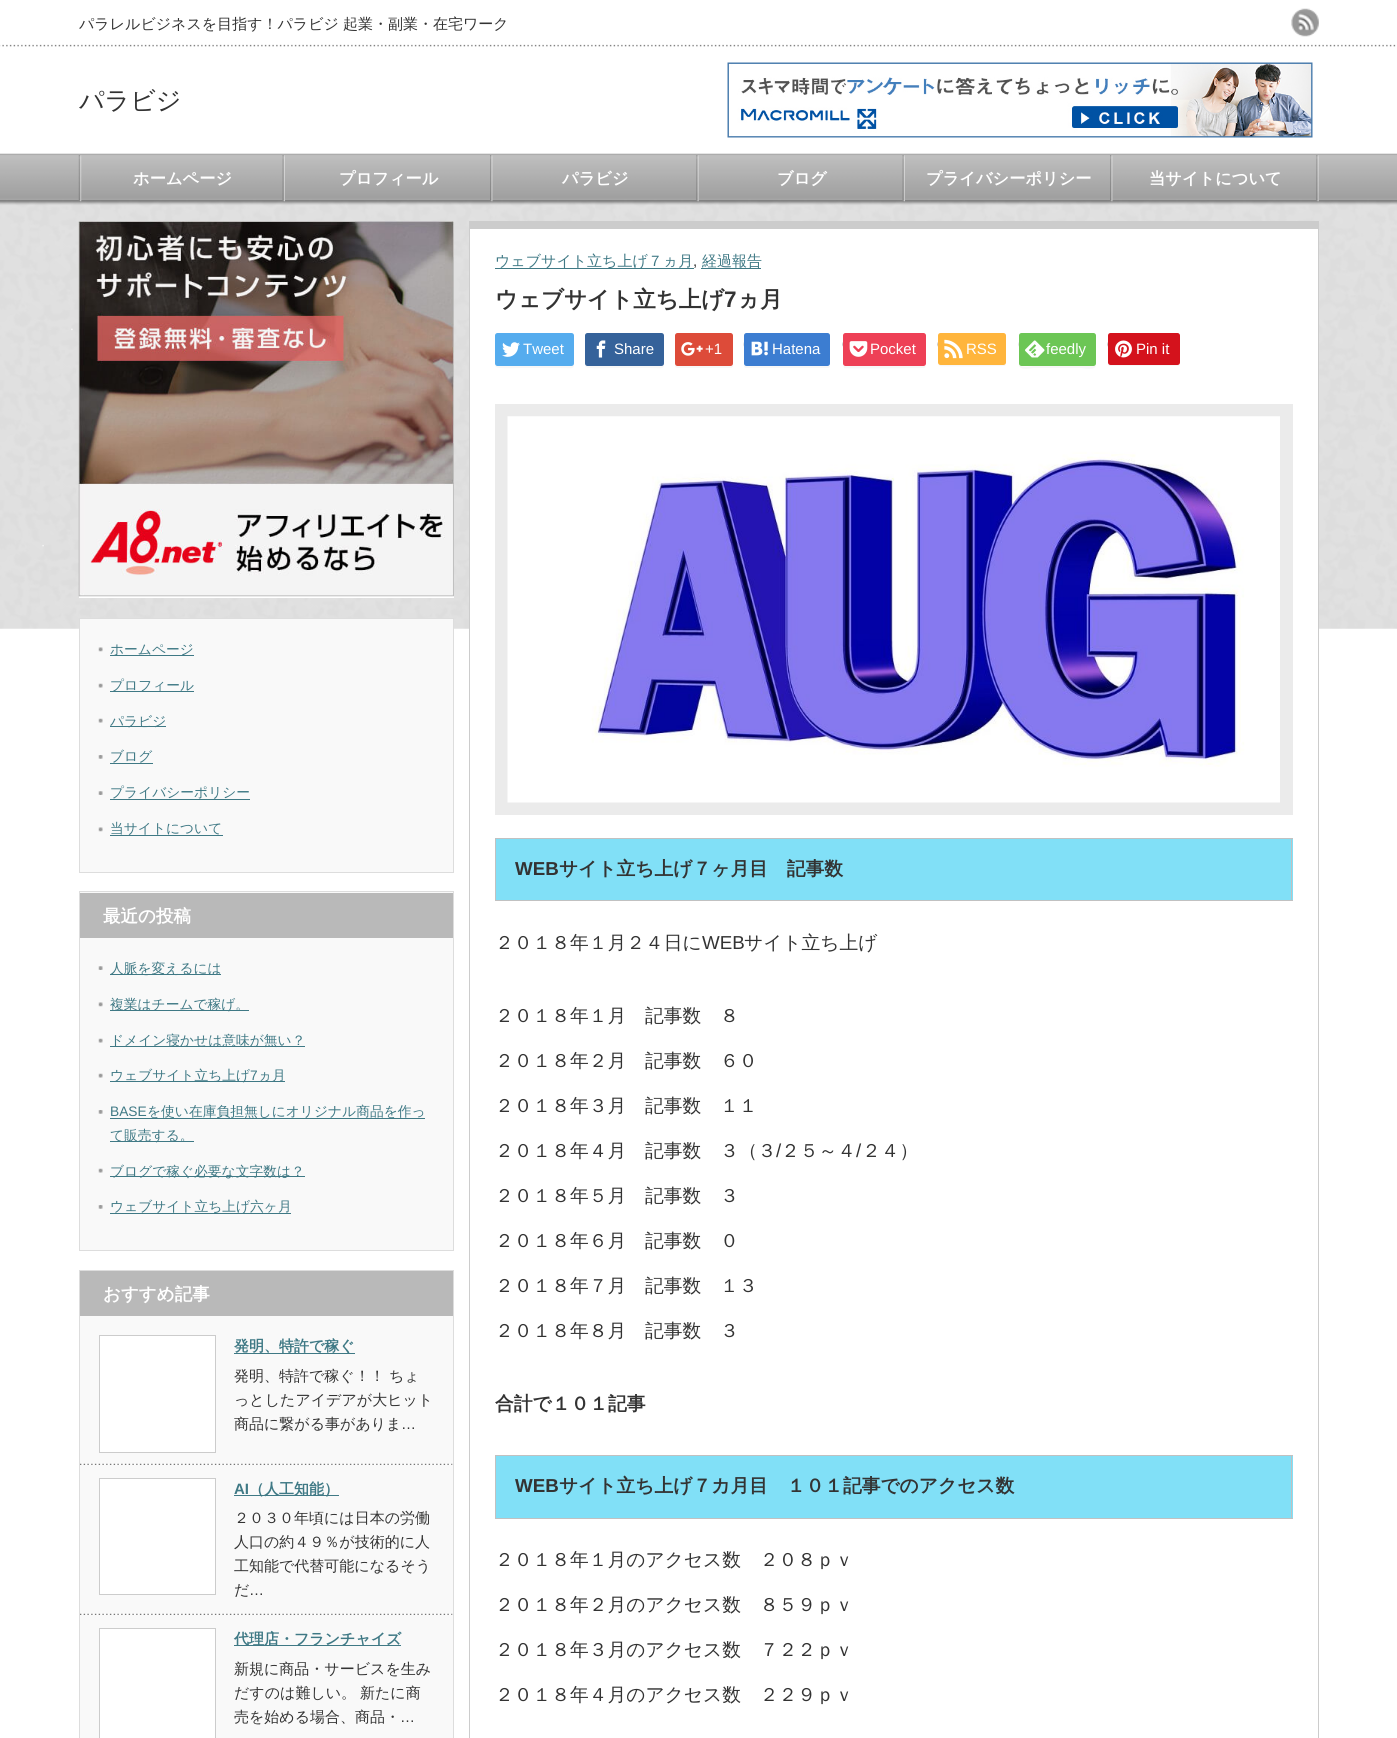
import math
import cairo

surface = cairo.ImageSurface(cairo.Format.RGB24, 1397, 1738)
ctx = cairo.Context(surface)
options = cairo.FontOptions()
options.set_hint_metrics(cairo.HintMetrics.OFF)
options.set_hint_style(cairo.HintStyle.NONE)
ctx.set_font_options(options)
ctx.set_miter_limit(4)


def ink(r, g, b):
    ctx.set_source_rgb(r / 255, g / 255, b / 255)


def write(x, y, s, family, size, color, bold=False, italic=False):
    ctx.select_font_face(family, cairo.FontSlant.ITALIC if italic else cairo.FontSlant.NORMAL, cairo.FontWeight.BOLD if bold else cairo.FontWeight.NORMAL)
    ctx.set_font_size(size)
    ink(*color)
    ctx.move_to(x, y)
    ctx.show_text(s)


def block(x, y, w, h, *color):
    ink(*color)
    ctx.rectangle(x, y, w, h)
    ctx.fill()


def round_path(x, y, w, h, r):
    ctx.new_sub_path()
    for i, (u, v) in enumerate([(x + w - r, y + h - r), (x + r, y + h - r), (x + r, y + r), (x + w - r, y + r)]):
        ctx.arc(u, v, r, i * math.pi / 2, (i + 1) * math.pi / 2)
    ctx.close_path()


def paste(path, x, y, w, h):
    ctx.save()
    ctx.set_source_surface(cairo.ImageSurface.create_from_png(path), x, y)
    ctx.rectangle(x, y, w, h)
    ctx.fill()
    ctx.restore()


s1 = dict(family="WenQuanYi Zen Hei Medium", size=15, color=(51, 51, 51))
s2 = dict(family="WenQuanYi Zen Hei Medium", size=25, color=(51, 51, 51))
s3 = dict(family="WenQuanYi Zen Hei", size=16.25, color=(255, 255, 255), bold=True)
s4 = dict(family="WenQuanYi Zen Hei Medium", size=15, color=(63, 121, 133))
s5 = dict(family="Liberation Sans", size=15, color=(51, 51, 51))
s6 = dict(family="WenQuanYi Zen Hei", size=22.5, color=(51, 51, 51), bold=True)
s7 = dict(family="Liberation Sans", size=22.5, color=(51, 51, 51), bold=True)
s8 = dict(family="Liberation Sans", size=15, color=(255, 255, 255))
s9 = dict(family="Liberation Sans", size=18.75, color=(51, 51, 51), bold=True)
s10 = dict(family="WenQuanYi Zen Hei", size=18.75, color=(51, 51, 51), bold=True)
s11 = dict(family="WenQuanYi Zen Hei Medium", size=18.75, color=(51, 51, 51))
s12 = dict(family="Liberation Sans", size=18.75, color=(51, 51, 51))
s13 = dict(family="WenQuanYi Zen Hei Medium", size=13.75, color=(63, 121, 133))
s14 = dict(family="WenQuanYi Zen Hei", size=17.5, color=(255, 255, 255), bold=True)
s15 = dict(family="Liberation Sans", size=13.75, color=(63, 121, 133))
s16 = dict(family="WenQuanYi Zen Hei", size=15, color=(63, 121, 133), bold=True)
s17 = dict(family="Liberation Sans", size=15, color=(63, 121, 133), bold=True)

ink(255, 255, 255)
ctx.paint()
paste("pic1.png", 0, 44, 1397, 585)
write(79, 29, "パラレルビジネスを目指す！パラビジ", **s1)
write(343, 29, "起業・副業・在宅ワーク", **s1)
paste("pic2.png", 1291, 8, 28, 29)
write(79, 109, "パラビジ", **s2)
paste("pic3.png", 727, 62, 586, 76)
paste("pic4.png", 78, 155, 4, 47)
paste("pic5.png", 282, 155, 3, 47)
write(133, 184, "ホームページ", **s3)
paste("pic6.png", 490, 155, 3, 47)
write(339, 184, "プロフィール", **s3)
paste("pic7.png", 696, 155, 3, 47)
write(562, 184, "パラビジ", **s3)
paste("pic8.png", 902, 155, 3, 47)
write(777, 184, "ブログ", **s3)
paste("pic6.png", 1110, 155, 3, 47)
write(926, 184, "プライバシーポリシー", **s3)
paste("pic9.png", 1316, 155, 3, 47)
write(1149, 184, "当サイトについて", **s3)
block(79, 221, 375, 377, 255, 255, 255)
paste("pic10.png", 78, 221, 376, 376)
block(470, 229, 848, 400, 255, 255, 255)
block(469, 221, 850, 8, 204, 204, 204)
block(1318, 221, 1, 1517, 204, 204, 204)
block(469, 221, 1, 1517, 204, 204, 204)
block(495, 268, 199, 1, 63, 121, 133)
write(495, 266, "ウェブサイト立ち上げ７ヵ月", **s4)
write(693, 266, ",", **s5)
block(701, 268, 60, 1, 63, 121, 133)
write(702, 266, "経過報告", **s4)
write(495, 307, "ウェブサイト立ち上げ", **s6)
write(724, 307, "7", **s7)
write(737, 307, "ヵ月", **s6)
ink(247, 247, 247)
ctx.new_path()
ctx.move_to(495, 364)
ctx.curve_to(495, 365, 495, 366, 496, 367)
ctx.curve_to(498, 369, 519, 368, 522, 368)
ctx.line_to(559, 368)
ctx.curve_to(576, 368, 574, 371, 574, 356)
ctx.line_to(574, 335)
ctx.line_to(574, 364)
ctx.curve_to(574, 365, 573, 366, 571, 366)
ctx.line_to(498, 366)
ctx.curve_to(496, 366, 495, 365, 495, 364)
ctx.close_path()
ctx.fill()
ink(85, 172, 238)
round_path(495, 333, 79, 33, 2.5)
ctx.fill()
paste("pic11.png", 502, 342, 18, 15)
write(523, 354, "Tweet", **s8)
ink(247, 247, 247)
ctx.new_path()
ctx.move_to(585, 364)
ctx.curve_to(585, 365, 585, 366, 586, 367)
ctx.curve_to(588, 369, 609, 368, 612, 368)
ctx.line_to(649, 368)
ctx.curve_to(666, 368, 664, 371, 664, 356)
ctx.line_to(664, 335)
ctx.line_to(664, 364)
ctx.curve_to(664, 365, 663, 366, 661, 366)
ctx.line_to(588, 366)
ctx.curve_to(586, 366, 585, 365, 585, 364)
ctx.close_path()
ctx.fill()
ink(53, 98, 154)
round_path(585, 333, 79, 33, 2.5)
ctx.fill()
paste("pic12.png", 596, 340, 10, 18)
write(614, 354, "Share", **s8)
ink(247, 247, 247)
ctx.new_path()
ctx.move_to(675, 364)
ctx.line_to(675, 366)
ctx.curve_to(675, 367, 676, 368, 678, 368)
ctx.line_to(730, 368)
ctx.curve_to(732, 368, 733, 367, 733, 366)
ctx.line_to(733, 336)
ctx.line_to(732, 335)
ctx.line_to(732, 364)
ctx.curve_to(732, 365, 731, 366, 730, 366)
ctx.line_to(678, 366)
ctx.curve_to(676, 366, 675, 365, 675, 364)
ctx.close_path()
ctx.fill()
ink(221, 75, 57)
round_path(675, 333, 58, 33, 2.5)
ctx.fill()
paste("pic13.png", 681, 342, 22, 14)
write(705, 354, "+1", **s8)
paste("pic14.png", 743, 342, 1, 5)
ink(247, 247, 247)
ctx.new_path()
ctx.move_to(744, 365)
ctx.line_to(744, 366)
ctx.curve_to(744, 367, 745, 368, 746, 368)
ctx.line_to(828, 368)
ctx.curve_to(829, 368, 830, 367, 830, 366)
ctx.line_to(830, 364)
ctx.curve_to(830, 365, 829, 366, 828, 366)
ctx.line_to(746, 366)
ctx.curve_to(745, 366, 744, 366, 744, 365)
ctx.close_path()
ctx.fill()
ink(60, 125, 209)
round_path(744, 333, 86, 33, 2.5)
ctx.fill()
paste("pic15.png", 751, 341, 17, 15)
write(772, 354, "Hatena", **s8)
paste("pic16.png", 842, 342, 1, 5)
ink(247, 247, 247)
ctx.new_path()
ctx.move_to(843, 365)
ctx.line_to(844, 368)
ctx.curve_to(846, 369, 916, 368, 924, 368)
ctx.curve_to(925, 368, 926, 366, 926, 365)
ctx.curve_to(926, 366, 925, 366, 924, 366)
ctx.line_to(845, 366)
ctx.curve_to(844, 366, 843, 366, 843, 365)
ctx.close_path()
ctx.fill()
ink(238, 64, 86)
round_path(843, 333, 83, 33, 2.5)
ctx.fill()
paste("pic17.png", 849, 341, 19, 16)
write(870, 354, "Pocket", **s8)
paste("pic16.png", 937, 342, 1, 5)
ink(247, 247, 247)
ctx.new_path()
ctx.move_to(938, 364)
ctx.line_to(940, 366)
ctx.curve_to(942, 367, 1005, 366, 1005, 366)
ctx.line_to(1006, 364)
ctx.line_to(1004, 365)
ctx.line_to(940, 365)
ctx.close_path()
ctx.fill()
ink(255, 181, 60)
round_path(938, 333, 68, 32, 2.5)
ctx.fill()
paste("pic18.png", 944, 339, 19, 20)
write(966, 354, "RSS", **s8)
paste("pic14.png", 1018, 342, 1, 5)
ink(247, 247, 247)
ctx.new_path()
ctx.move_to(1019, 365)
ctx.curve_to(1019, 371, 1032, 368, 1034, 368)
ctx.line_to(1082, 368)
ctx.curve_to(1083, 368, 1096, 371, 1096, 365)
ctx.line_to(1095, 366)
ctx.line_to(1033, 366)
ctx.curve_to(1033, 366, 1021, 368, 1019, 365)
ctx.close_path()
ctx.fill()
ink(108, 198, 85)
round_path(1019, 333, 77, 33, 2.5)
ctx.fill()
paste("pic19.png", 1025, 340, 20, 18)
write(1046, 354, "feedly", **s8)
paste("pic16.png", 1107, 342, 1, 5)
ink(247, 247, 247)
ctx.new_path()
ctx.move_to(1108, 364)
ctx.curve_to(1108, 365, 1109, 366, 1110, 366)
ctx.line_to(1178, 366)
ctx.curve_to(1179, 366, 1180, 365, 1180, 364)
ctx.line_to(1180, 362)
ctx.curve_to(1180, 364, 1179, 365, 1178, 365)
ctx.line_to(1110, 365)
ctx.close_path()
ctx.fill()
ink(212, 18, 28)
round_path(1108, 333, 72, 32, 2.5)
ctx.fill()
paste("pic20.png", 1115, 340, 17, 18)
write(1136, 354, "Pin it", **s8)
block(495, 404, 798, 411, 235, 235, 235)
paste("pic21.png", 507, 416, 773, 387)
block(496, 839, 797, 61, 129, 224, 247)
block(495, 838, 798, 1, 193, 193, 193)
block(1291, 838, 1, 63, 193, 193, 193)
block(495, 900, 798, 1, 193, 193, 193)
block(495, 838, 1, 63, 193, 193, 193)
write(515, 875, "WEB", **s9)
write(559, 875, "サイト立ち上げ７ヶ月目　記事数", **s10)
write(495, 949, "２０１８年１月２４日に", **s11)
write(702, 949, "WEB", **s12)
write(744, 949, "サイト立ち上げ", **s11)
write(495, 1022, "２０１８年１月　記事数　８", **s11)
write(495, 1067, "２０１８年２月　記事数　６０", **s11)
write(495, 1112, "２０１８年３月　記事数　１１", **s11)
write(495, 1157, "２０１８年４月　記事数　３（３", **s11)
write(776, 1157, "/", **s12)
write(781, 1157, "２５～４", **s11)
write(856, 1157, "/", **s12)
write(862, 1157, "２４）", **s11)
write(495, 1202, "２０１８年５月　記事数　３", **s11)
write(495, 1247, "２０１８年６月　記事数　０", **s11)
write(495, 1292, "２０１８年７月　記事数　１３", **s11)
write(495, 1337, "２０１８年８月　記事数　３", **s11)
write(495, 1410, "合計で１０１記事", **s10)
block(496, 1456, 797, 62, 129, 224, 247)
block(495, 1455, 798, 1, 193, 193, 193)
block(1291, 1455, 1, 64, 193, 193, 193)
block(495, 1518, 798, 1, 193, 193, 193)
block(495, 1455, 1, 64, 193, 193, 193)
write(515, 1492, "WEB", **s9)
write(559, 1492, "サイト立ち上げ７カ月目　１０１記事でのアクセス数", **s10)
write(495, 1566, "２０１８年１月のアクセス数　２０８ｐｖ", **s11)
write(495, 1611, "２０１８年２月のアクセス数　８５９ｐｖ", **s11)
write(495, 1656, "２０１８年３月のアクセス数　７２２ｐｖ", **s11)
write(495, 1701, "２０１８年４月のアクセス数　２２９ｐｖ", **s11)
ink(249, 249, 249)
ctx.rectangle(79.5, 618.5, 374, 254)
ctx.fill_preserve()
ink(221, 221, 221)
ctx.set_line_width(1)
ctx.stroke()
paste("pic22.png", 98, 647, 5, 5)
block(110, 655, 84, 1, 63, 121, 133)
write(110, 654, "ホームページ", **s13)
paste("pic23.png", 98, 683, 5, 5)
block(110, 691, 84, 1, 63, 121, 133)
write(110, 690, "プロフィール", **s13)
paste("pic23.png", 98, 718, 5, 5)
block(110, 726, 56, 1, 63, 121, 133)
write(110, 726, "パラビジ", **s13)
paste("pic24.png", 98, 755, 5, 4)
write(110, 761, "ブログ", **s13)
block(110, 763, 43, 1, 63, 121, 133)
paste("pic25.png", 98, 791, 5, 4)
write(110, 797, "プライバシーポリシー", **s13)
block(110, 799, 140, 1, 63, 121, 133)
paste("pic22.png", 98, 827, 5, 5)
write(110, 833, "当サイトについて", **s13)
block(110, 835, 113, 1, 63, 121, 133)
ink(249, 249, 249)
ctx.rectangle(79.5, 891.5, 374, 359)
ctx.fill_preserve()
ink(221, 221, 221)
ctx.stroke()
block(80, 893, 373, 45, 185, 185, 185)
write(103, 922, "最近の投稿", **s14)
paste("pic25.png", 98, 966, 5, 4)
block(110, 974, 111, 1, 63, 121, 133)
write(110, 973, "人脈を変えるには", **s13)
paste("pic22.png", 98, 1002, 5, 5)
block(110, 1010, 139, 1, 63, 121, 133)
write(110, 1009, "複業はチームで稼げ。", **s13)
paste("pic23.png", 98, 1038, 5, 5)
block(110, 1046, 195, 1, 63, 121, 133)
write(110, 1045, "ドメイン寝かせは意味が無い？", **s13)
paste("pic23.png", 98, 1073, 5, 5)
block(110, 1081, 175, 1, 63, 121, 133)
write(110, 1080, "ウェブサイト立ち上げ", **s13)
write(250, 1080, "7", **s15)
write(258, 1080, "ヵ月", **s13)
paste("pic24.png", 98, 1110, 5, 4)
write(110, 1116, "BASE", **s15)
block(110, 1118, 315, 1, 63, 121, 133)
write(147, 1116, "を使い在庫負担無しにオリジナル商品を作っ", **s13)
block(110, 1141, 84, 1, 63, 121, 133)
write(110, 1140, "て販売する。", **s13)
paste("pic23.png", 98, 1168, 5, 5)
block(110, 1176, 195, 1, 63, 121, 133)
write(110, 1176, "ブログで稼ぐ必要な文字数は？", **s13)
paste("pic24.png", 98, 1205, 5, 4)
block(110, 1213, 181, 1, 63, 121, 133)
write(110, 1211, "ウェブサイト立ち上げ六ヶ月", **s13)
block(80, 1316, 373, 422, 249, 249, 249)
ctx.rectangle(79.5, 1270.5, 374, 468)
ink(221, 221, 221)
ctx.stroke()
block(80, 1271, 373, 45, 185, 185, 185)
write(103, 1300, "おすすめ記事", **s14)
paste("pic26.png", 80, 1463, 373, 2)
ctx.rectangle(99.5, 1335.5, 116, 117)
ctx.fill_preserve()
ink(204, 204, 204)
ctx.stroke()
block(234, 1353, 121, 1, 63, 121, 133)
write(234, 1351, "発明、特許で稼ぐ", **s16)
write(234, 1381, "発明、特許で稼ぐ！！", **s1)
write(389, 1381, "ちょ", **s1)
write(234, 1405, "っとしたアイデアが大ヒット", **s1)
write(234, 1429, "商品に繋がる事がありま", **s1)
write(401, 1429, "…", **s5)
paste("pic26.png", 80, 1613, 373, 2)
ink(255, 255, 255)
ctx.rectangle(99.5, 1478.5, 116, 116)
ctx.fill_preserve()
ink(204, 204, 204)
ctx.stroke()
write(234, 1494, "AI", **s17)
block(234, 1495, 105, 1, 63, 121, 133)
write(249, 1494, "（人工知能）", **s16)
write(234, 1523, "２０３０年頃には日本の労働", **s1)
write(234, 1547, "人口の約４９％が技術的に人", **s1)
write(234, 1571, "工知能で代替可能になるそう", **s1)
write(234, 1595, "だ", **s1)
write(249, 1595, "…", **s5)
ink(255, 255, 255)
ctx.rectangle(99.5, 1628.5, 116, 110)
ctx.fill_preserve()
ink(204, 204, 204)
ctx.stroke()
block(234, 1645, 167, 1, 63, 121, 133)
write(234, 1644, "代理店・フランチャイズ", **s16)
write(234, 1674, "新規に商品・サービスを生み", **s1)
write(234, 1698, "だすのは難しい。", **s1)
write(360, 1698, "新たに商", **s1)
write(234, 1722, "売を始める場合、商品・", **s1)
write(400, 1722, "…", **s5)
surface.write_to_png("screenshot.png")
